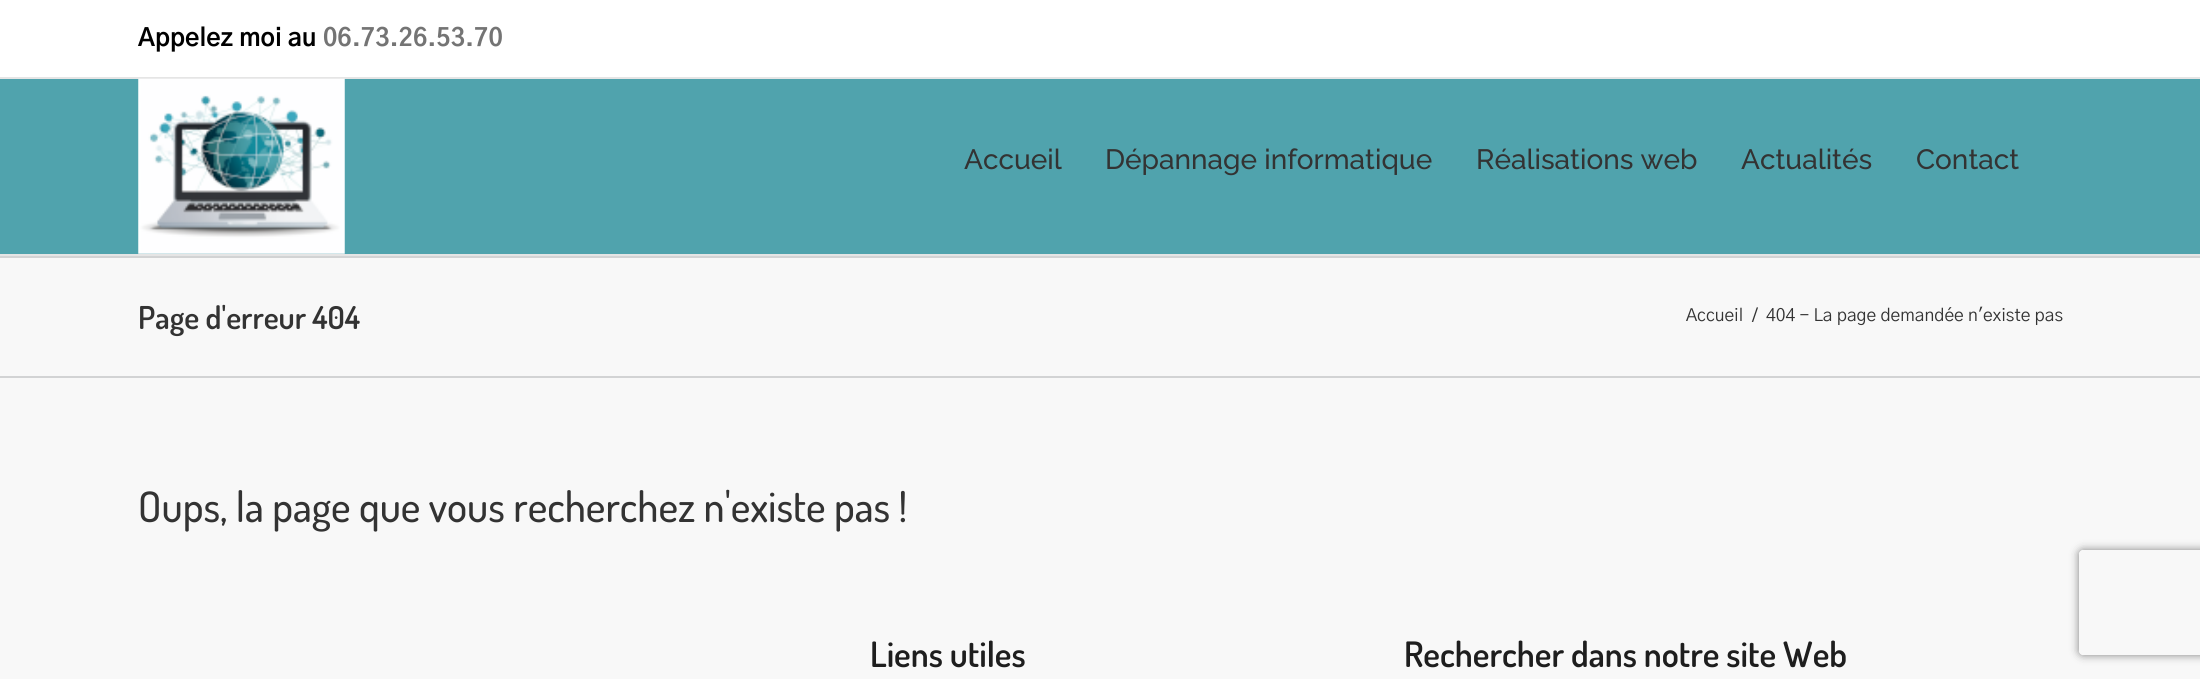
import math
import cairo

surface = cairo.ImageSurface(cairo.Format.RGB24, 2200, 679)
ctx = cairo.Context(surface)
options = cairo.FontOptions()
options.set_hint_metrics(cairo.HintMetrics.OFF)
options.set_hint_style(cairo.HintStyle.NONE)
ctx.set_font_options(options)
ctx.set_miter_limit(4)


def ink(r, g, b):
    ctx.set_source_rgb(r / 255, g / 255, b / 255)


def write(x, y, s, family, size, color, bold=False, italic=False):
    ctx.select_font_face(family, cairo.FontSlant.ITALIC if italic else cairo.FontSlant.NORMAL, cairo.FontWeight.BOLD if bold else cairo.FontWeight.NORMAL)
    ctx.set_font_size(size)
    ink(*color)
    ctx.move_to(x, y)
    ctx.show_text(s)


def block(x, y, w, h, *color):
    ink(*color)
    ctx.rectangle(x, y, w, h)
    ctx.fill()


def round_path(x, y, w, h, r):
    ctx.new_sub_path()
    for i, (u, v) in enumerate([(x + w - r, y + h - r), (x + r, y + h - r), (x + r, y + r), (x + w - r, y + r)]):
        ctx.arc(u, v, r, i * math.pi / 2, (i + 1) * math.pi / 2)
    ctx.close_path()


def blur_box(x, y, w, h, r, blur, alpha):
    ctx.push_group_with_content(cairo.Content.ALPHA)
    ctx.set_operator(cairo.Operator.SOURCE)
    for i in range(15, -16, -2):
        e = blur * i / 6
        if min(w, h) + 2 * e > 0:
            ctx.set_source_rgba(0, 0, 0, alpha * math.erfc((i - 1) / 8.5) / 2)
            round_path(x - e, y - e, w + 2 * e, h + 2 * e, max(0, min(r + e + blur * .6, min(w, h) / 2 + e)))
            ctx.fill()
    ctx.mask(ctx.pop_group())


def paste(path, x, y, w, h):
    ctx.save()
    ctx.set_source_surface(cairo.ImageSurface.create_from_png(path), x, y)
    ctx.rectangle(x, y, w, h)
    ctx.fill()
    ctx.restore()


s1 = dict(family="Gothic A1", size=24.5, color=(0, 0, 0), bold=True)
s2 = dict(family="Gothic A1", size=24.5, color=(116, 116, 116), bold=True)
s3 = dict(family="Raleway Thin", size=28, color=(51, 51, 51))
s4 = dict(family="Dosis SemiBold", size=31.5, color=(51, 51, 51))
s5 = dict(family="Gothic A1", size=17.5, color=(51, 51, 51))
s6 = dict(family="Dosis Medium", size=42, color=(51, 51, 51))
s7 = dict(family="Dosis SemiBold", size=35, color=(30, 30, 30))

ink(248, 248, 248)
ctx.paint()
block(0, 0, 2200, 77, 255, 255, 255)
block(0, 77, 2200, 2, 229, 229, 229)
write(138, 46, "Appelez moi au", **s1)
write(323, 46, "06.73.26.53.70", **s2)
block(0, 79, 2200, 175, 80, 163, 173)
block(0, 254, 2200, 2, 229, 229, 229)
paste("pic1.png", 138, 78, 207, 176)
write(964, 169, "Accueil", **s3)
write(1105, 169, "Dépannage informatique", **s3)
write(1476, 169, "Réalisations web", **s3)
write(1741, 169, "Actualités", **s3)
write(1916, 169, "Contact", **s3)
block(0, 256, 2200, 2, 210, 211, 212)
block(0, 376, 2200, 2, 210, 211, 212)
write(138, 329, "Page d'erreur 404", **s4)
write(1686, 321, "Accueil", **s5)
write(1752, 321, "/", **s5)
write(1766, 321, "404 - La page demandée n'existe pas", **s5)
write(138, 522, "Oups, la page que vous recherchez n'existe pas !", **s6)
write(870, 667, "Liens utiles", **s7)
write(1404, 667, "Rechercher dans notre site Web", **s7)
ctx.save()
ctx.set_fill_rule(cairo.FillRule.EVEN_ODD)
ctx.new_path()
ctx.move_to(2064, 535)
ctx.line_to(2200, 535)
ctx.line_to(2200, 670)
ctx.line_to(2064, 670)
ctx.close_path()
ctx.move_to(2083, 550)
ctx.line_to(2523, 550)
ctx.curve_to(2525, 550, 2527, 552, 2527, 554)
ctx.line_to(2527, 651)
ctx.curve_to(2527, 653, 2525, 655, 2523, 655)
ctx.line_to(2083, 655)
ctx.curve_to(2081, 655, 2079, 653, 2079, 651)
ctx.line_to(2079, 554)
ctx.curve_to(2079, 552, 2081, 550, 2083, 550)
ctx.close_path()
ctx.clip()
ink(128, 128, 128)
blur_box(2079, 550, 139, 105, 4, 4.5, 1)
ctx.restore()
surface.write_to_png("screenshot.png")
